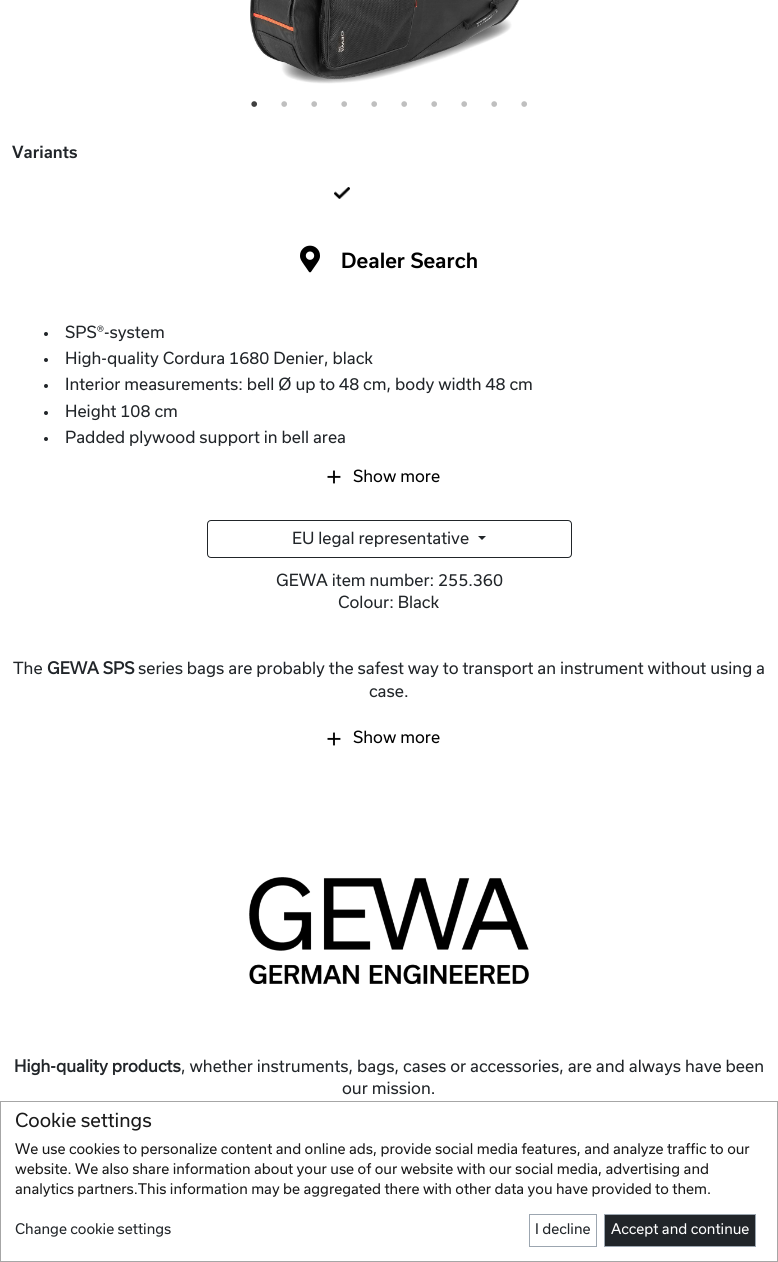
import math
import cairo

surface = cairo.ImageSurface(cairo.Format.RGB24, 778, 1262)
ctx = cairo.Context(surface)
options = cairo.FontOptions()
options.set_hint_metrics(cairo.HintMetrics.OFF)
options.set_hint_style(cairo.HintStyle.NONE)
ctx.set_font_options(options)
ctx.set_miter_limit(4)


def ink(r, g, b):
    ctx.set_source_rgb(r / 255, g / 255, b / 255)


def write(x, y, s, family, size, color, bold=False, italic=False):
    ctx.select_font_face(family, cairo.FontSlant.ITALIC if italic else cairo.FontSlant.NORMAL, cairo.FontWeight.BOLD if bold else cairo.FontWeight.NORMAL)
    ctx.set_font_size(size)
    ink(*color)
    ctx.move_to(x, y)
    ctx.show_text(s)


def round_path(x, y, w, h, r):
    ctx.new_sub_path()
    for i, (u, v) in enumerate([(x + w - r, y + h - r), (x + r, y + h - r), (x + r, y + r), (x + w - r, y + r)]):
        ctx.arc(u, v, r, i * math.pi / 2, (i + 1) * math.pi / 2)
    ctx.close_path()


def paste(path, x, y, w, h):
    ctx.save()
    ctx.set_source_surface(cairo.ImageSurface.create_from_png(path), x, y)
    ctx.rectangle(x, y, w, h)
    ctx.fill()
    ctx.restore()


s1 = dict(family="Liberation Serif", size=24, color=(64, 64, 64))
s2 = dict(family="Liberation Serif", size=24, color=(191, 191, 191))
s3 = dict(family="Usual", size=16, color=(33, 37, 41))
s4 = dict(family="Usual", size=20, color=(0, 0, 0))
s5 = dict(family="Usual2", size=16, color=(33, 37, 41))
s6 = dict(family="Usual2", size=16, color=(0, 0, 0))
s7 = dict(family="Usual2", size=16, color=(33, 37, 41), bold=True)
s8 = dict(family="Usual2", size=18.5, color=(26, 26, 26))
s9 = dict(family="Usual2", size=14, color=(26, 26, 26))
s10 = dict(family="Usual2", size=14, color=(33, 37, 41))
s11 = dict(family="Usual2", size=14, color=(255, 255, 255))

ink(255, 255, 255)
ctx.paint()
paste("pic1.png", 250, 0, 270, 84)
write(250, 112, "•", **s1)
write(280, 112, "•", **s2)
write(310, 112, "•", **s2)
write(340, 112, "•", **s2)
write(370, 112, "•", **s2)
write(400, 112, "•", **s2)
write(430, 112, "•", **s2)
write(460, 112, "•", **s2)
write(490, 112, "•", **s2)
write(520, 112, "•", **s2)
write(12, 158, "Variants", **s3)
paste("pic2.png", 334, 187, 16, 12)
paste("pic3.png", 300, 245, 20, 28)
write(341, 268, "Dealer Search", **s4)
ink(33, 37, 41)
ctx.new_path()
ctx.arc(46, 334, 2, 0, 2 * math.pi)
ctx.fill()
write(65, 338, "SPS®-system", **s5)
ctx.new_path()
ctx.arc(46, 360, 2, 0, 2 * math.pi)
ctx.fill()
write(65, 364, "High-quality Cordura 1680 Denier, black", **s5)
ctx.new_path()
ctx.arc(46, 386, 2, 0, 2 * math.pi)
ctx.fill()
write(65, 390, "Interior measurements: bell Ø up to 48 cm, body width 48 cm", **s5)
ctx.new_path()
ctx.arc(46, 413, 2, 0, 2 * math.pi)
ctx.fill()
write(65, 417, "Height 108 cm", **s5)
ctx.new_path()
ctx.arc(46, 439, 2, 0, 2 * math.pi)
ctx.fill()
write(65, 443, "Padded plywood support in bell area", **s5)
paste("pic4.png", 327, 470, 14, 14)
write(353, 482, "Show more", **s6)
round_path(207.5, 520.5, 364, 37, 3.5)
ink(33, 37, 41)
ctx.set_line_width(1)
ctx.stroke()
write(292, 544, "EU legal representative", **s5)
ctx.new_path()
ctx.move_to(478, 536)
ctx.line_to(486, 536)
ctx.line_to(482, 540)
ctx.close_path()
ctx.fill()
write(276, 586, "GEWA item number: 255.360", **s5)
write(338, 608, "Colour: Black", **s5)
write(13, 674, "The", **s5)
write(47, 674, "GEWA SPS", **s7)
write(138, 674, "series bags are probably the safest way to transport an instrument without using a", **s5)
write(369, 697, "case.", **s5)
paste("pic4.png", 327, 732, 14, 14)
write(353, 743, "Show more", **s6)
paste("pic5.png", 249, 877, 280, 107)
write(14, 1072, "High-quality products", **s7)
write(181, 1072, ", whether instruments, bags, cases or accessories, are and always have been", **s5)
write(342, 1094, "our mission.", **s5)
ctx.rectangle(0.5, 1101.5, 777, 160)
ink(166, 166, 166)
ctx.stroke()
write(15, 1127, "Cookie settings", **s8)
write(15, 1154, "We use cookies to personalize content and online ads, provide social media features, and analyze traffic to our", **s9)
write(15, 1174, "website. We also share information about your use of our website with our social media, advertising and", **s9)
write(15, 1194, "analytics partners.This information may be aggregated there with other data you have provided to them.", **s9)
write(15, 1234, "Change cookie settings", **s10)
ctx.rectangle(529.5, 1214.5, 67, 32)
ink(156, 166, 176)
ctx.stroke()
write(535, 1234, "I decline", **s10)
ctx.rectangle(604.5, 1214.5, 151, 32)
ctx.fill_preserve()
ink(156, 166, 176)
ctx.stroke()
write(611, 1234, "Accept and continue", **s11)
surface.write_to_png("screenshot.png")
